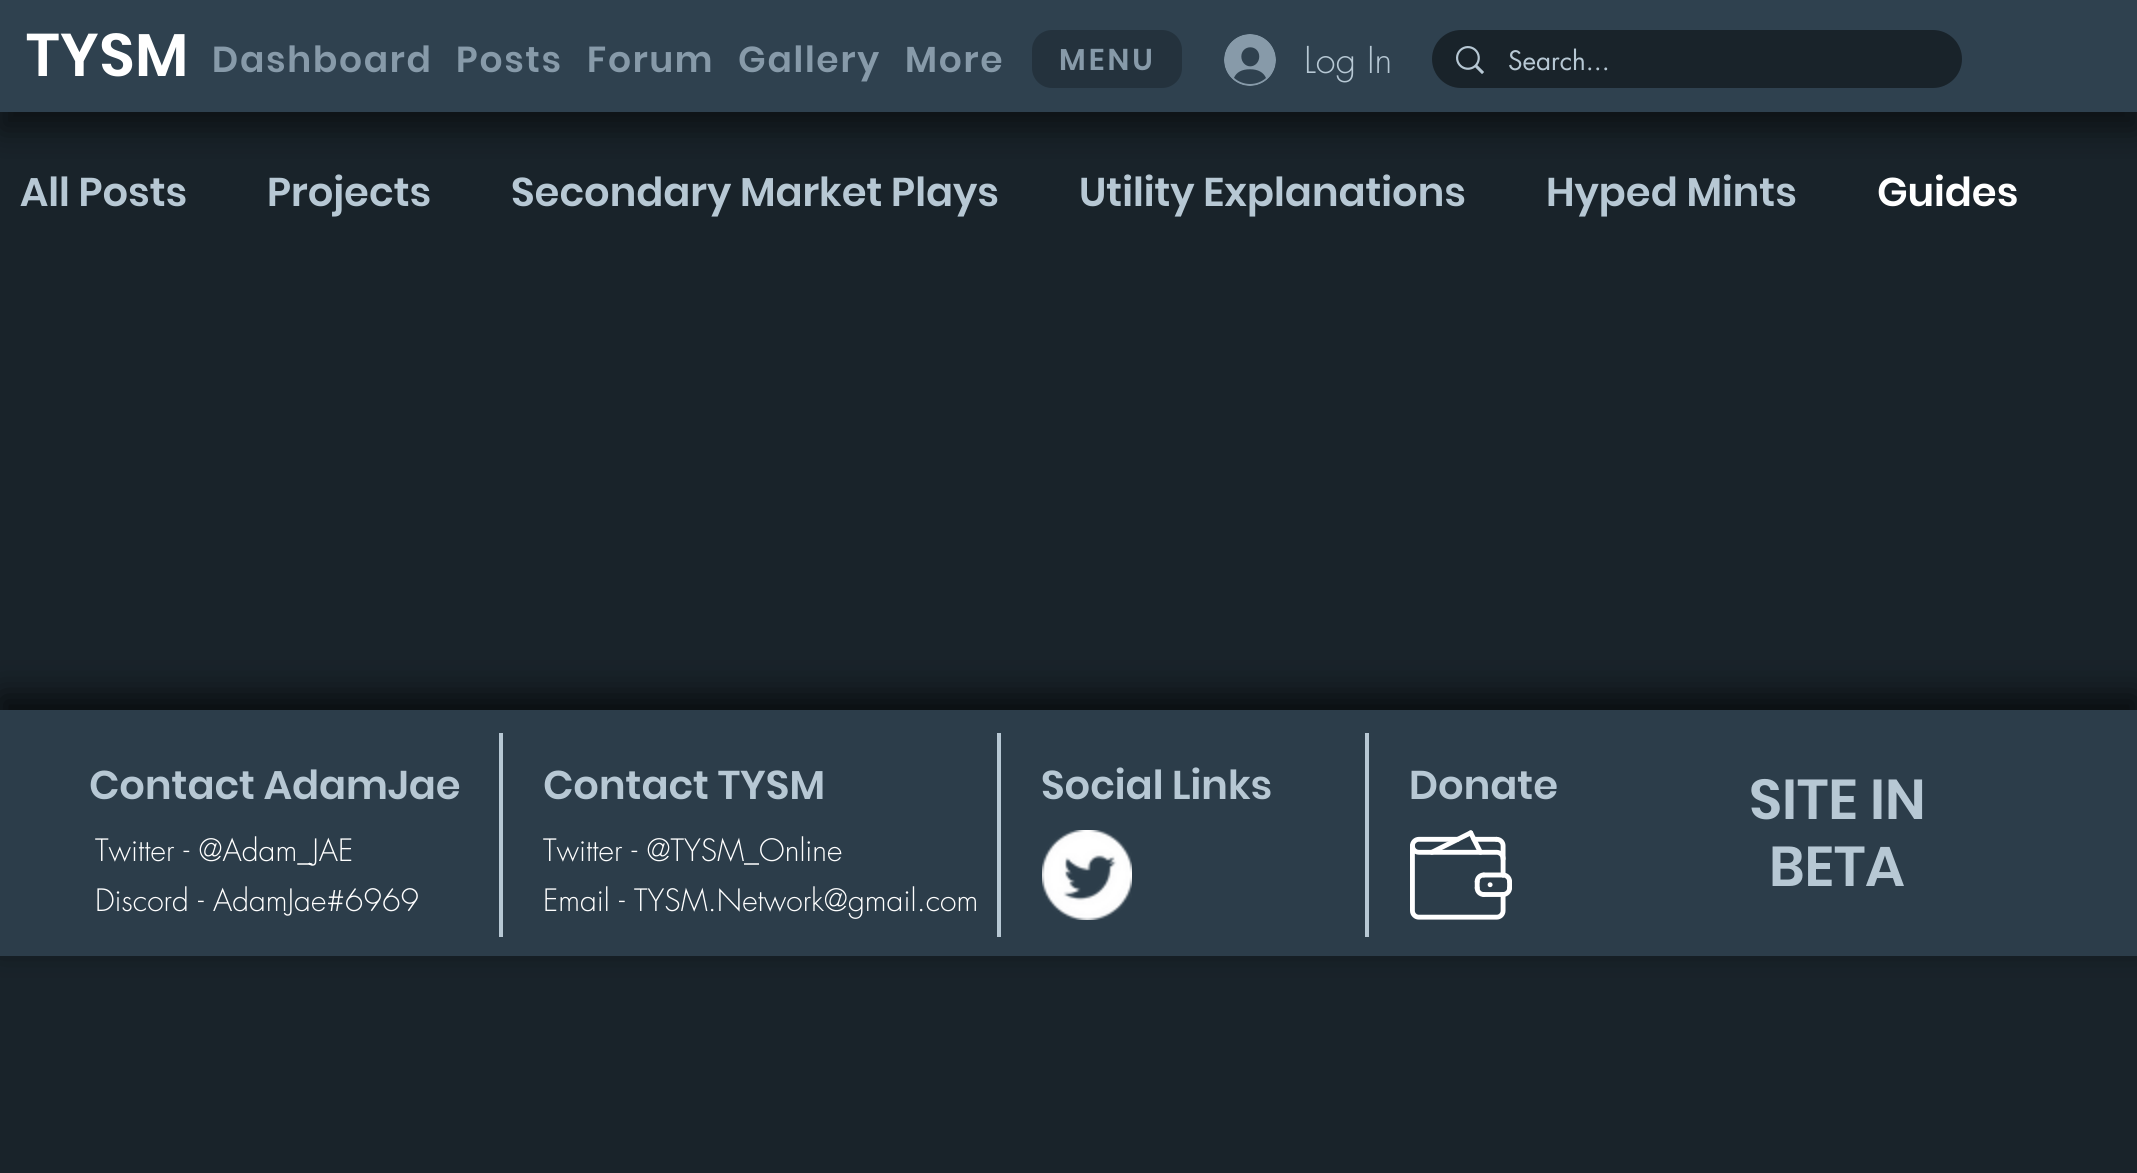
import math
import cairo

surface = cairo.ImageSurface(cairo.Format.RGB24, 2137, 1173)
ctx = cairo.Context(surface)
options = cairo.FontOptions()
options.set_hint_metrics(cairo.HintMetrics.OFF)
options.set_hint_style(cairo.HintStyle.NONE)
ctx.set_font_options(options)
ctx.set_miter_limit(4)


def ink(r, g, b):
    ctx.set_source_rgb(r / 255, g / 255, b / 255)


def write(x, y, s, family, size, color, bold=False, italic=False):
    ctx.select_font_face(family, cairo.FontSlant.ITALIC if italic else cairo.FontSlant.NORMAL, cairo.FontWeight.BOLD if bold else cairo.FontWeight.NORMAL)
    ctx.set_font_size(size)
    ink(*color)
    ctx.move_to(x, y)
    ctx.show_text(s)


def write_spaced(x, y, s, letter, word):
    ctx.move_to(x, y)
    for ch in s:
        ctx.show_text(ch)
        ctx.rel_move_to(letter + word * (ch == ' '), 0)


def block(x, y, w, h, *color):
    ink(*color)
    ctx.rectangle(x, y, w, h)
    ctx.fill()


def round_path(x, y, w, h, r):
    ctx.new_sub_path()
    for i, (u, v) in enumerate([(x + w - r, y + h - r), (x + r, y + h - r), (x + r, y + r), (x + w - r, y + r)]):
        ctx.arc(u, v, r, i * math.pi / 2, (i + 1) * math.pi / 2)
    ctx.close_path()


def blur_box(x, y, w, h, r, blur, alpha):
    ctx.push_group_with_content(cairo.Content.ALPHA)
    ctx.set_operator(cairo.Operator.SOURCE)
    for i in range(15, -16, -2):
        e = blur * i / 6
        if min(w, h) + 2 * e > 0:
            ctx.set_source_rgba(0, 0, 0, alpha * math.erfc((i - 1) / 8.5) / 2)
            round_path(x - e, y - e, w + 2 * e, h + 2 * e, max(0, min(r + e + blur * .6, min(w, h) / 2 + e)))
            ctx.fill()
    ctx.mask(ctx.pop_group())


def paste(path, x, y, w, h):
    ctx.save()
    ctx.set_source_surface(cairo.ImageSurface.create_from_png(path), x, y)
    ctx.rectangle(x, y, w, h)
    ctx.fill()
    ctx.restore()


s1 = dict(family="futura Light", size=36, color=(183, 200, 212))
s2 = dict(family="futura", size=26, color=(183, 200, 212))
s3 = dict(family="Poppins SemiBold", size=40, color=(183, 200, 212))
s4 = dict(family="Poppins SemiBold", size=40, color=(255, 255, 255))
s5 = dict(family="Poppins SemiBold", size=56, color=(183, 200, 212))
s6 = dict(family="futura Light", size=30, color=(255, 255, 255))

ink(25, 35, 42)
ctx.paint()
ink(0, 0, 0)
blur_box(0, 18, 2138, 112, 0, 16, 0.5)
block(0, 0, 2137, 112, 47, 65, 79)
ctx.select_font_face("Poppins SemiBold")
ctx.set_font_size(60)
ink(255, 255, 255)
write_spaced(26, 76, "TYSM", 0.5, 0)
ctx.set_font_size(36)
ink(135, 154, 169)
write_spaced(212, 72, "Dashboard", 1.75, 0)
write_spaced(456, 72, "Posts", 1.75, 0)
write_spaced(587, 72, "Forum", 1.75, 0)
write_spaced(738, 72, "Gallery", 1.75, 0)
write_spaced(905, 72, "More", 1.75, 0)
ink(36, 50, 61)
round_path(1032, 30, 150, 58, 20)
ctx.fill()
ctx.set_font_size(30)
ink(135, 154, 169)
write_spaced(1059, 70, "MENU", 3, 0)
paste("pic1.png", 1224, 34, 52, 52)
write(1304, 73, "Log In", **s1)
ink(25, 35, 42)
round_path(1432, 30, 530, 58, 29)
ctx.fill()
paste("pic2.png", 1456, 46, 28, 28)
write(1508, 70, "Search...", **s2)
write(20, 206, "All Posts", **s3)
write(267, 206, "Projects", **s3)
write(511, 206, "Secondary Market Plays", **s3)
write(1079, 206, "Utility Explanations", **s3)
write(1546, 206, "Hyped Mints", **s3)
write(1877, 206, "Guides", **s4)
ink(0, 0, 0)
blur_box(0, 696, 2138, 246, 0, 17, 0.7)
block(0, 710, 2137, 246, 44, 61, 74)
write(89, 799, "Contact AdamJae", **s3)
block(499, 733, 4, 204, 183, 200, 212)
write(543, 799, "Contact TYSM", **s3)
block(997, 733, 4, 204, 183, 200, 212)
write(1041, 799, "Social Links", **s3)
block(1365, 733, 4, 204, 183, 200, 212)
write(1409, 799, "Donate", **s3)
write(1749, 819, "SITE IN", **s5)
write(1769, 886, "BETA", **s5)
write(95, 861, "Twitter - @Adam_JAE", **s6)
write(95, 911, "Discord - AdamJae#6969", **s6)
write(543, 861, "Twitter - @TYSM_Online", **s6)
write(543, 911, "Email - TYSM.Network@gmail.com", **s6)
paste("pic3.png", 1042, 830, 90, 90)
paste("pic4.png", 1410, 830, 102, 90)
surface.write_to_png("screenshot.png")
